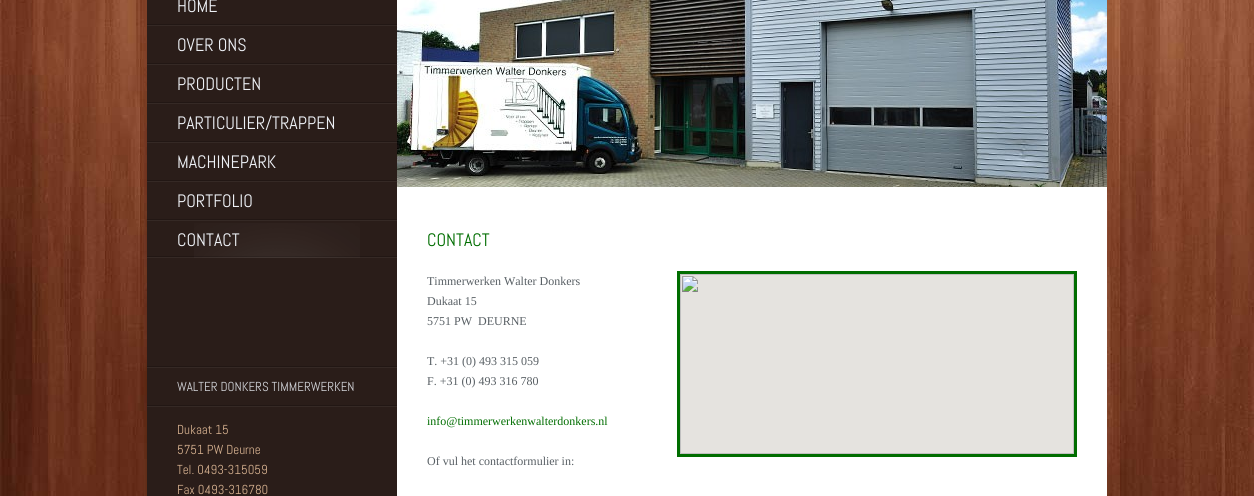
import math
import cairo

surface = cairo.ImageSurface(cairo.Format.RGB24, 1254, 496)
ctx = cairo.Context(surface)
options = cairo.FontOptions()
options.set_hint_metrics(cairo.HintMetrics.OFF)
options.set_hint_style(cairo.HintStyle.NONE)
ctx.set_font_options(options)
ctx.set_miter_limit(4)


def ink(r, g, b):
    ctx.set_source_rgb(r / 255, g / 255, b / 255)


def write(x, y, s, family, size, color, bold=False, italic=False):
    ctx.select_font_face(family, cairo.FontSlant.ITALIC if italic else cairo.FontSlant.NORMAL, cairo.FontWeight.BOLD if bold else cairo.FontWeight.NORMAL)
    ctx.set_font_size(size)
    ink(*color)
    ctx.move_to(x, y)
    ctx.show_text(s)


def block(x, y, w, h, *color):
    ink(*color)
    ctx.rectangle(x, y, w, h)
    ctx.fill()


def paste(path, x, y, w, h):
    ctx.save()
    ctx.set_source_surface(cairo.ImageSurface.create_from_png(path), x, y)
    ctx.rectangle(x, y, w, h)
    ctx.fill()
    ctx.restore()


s1 = dict(family="Abel", size=18, color=(237, 240, 245))
s2 = dict(family="Abel", size=13, color=(209, 211, 216))
s3 = dict(family="Abel", size=13, color=(212, 175, 142))
s4 = dict(family="Abel", size=18, color=(0, 109, 0))
s5 = dict(family="Liberation Serif", size=12, color=(88, 95, 100))
s6 = dict(family="Liberation Serif", size=12, color=(0, 109, 0))

ink(255, 255, 255)
ctx.paint()
paste("pic1.png", 0, 0, 1254, 496)
block(147, 0, 250, 496, 42, 29, 25)
paste("pic2.png", 147, 256, 250, 2)
write(177, 12, "HOME", **s1)
paste("pic2.png", 147, 24, 250, 2)
write(177, 51, "OVER ONS", **s1)
paste("pic2.png", 147, 63, 250, 2)
write(177, 90, "PRODUCTEN", **s1)
paste("pic2.png", 147, 102, 250, 2)
write(177, 129, "PARTICULIER/TRAPPEN", **s1)
paste("pic2.png", 147, 141, 250, 2)
write(177, 168, "MACHINEPARK", **s1)
paste("pic2.png", 147, 180, 250, 2)
write(177, 207, "PORTFOLIO", **s1)
paste("pic2.png", 147, 219, 250, 2)
paste("pic3.png", 194, 223, 166, 35)
write(177, 246, "CONTACT", **s1)
paste("pic4.png", 147, 366, 250, 41)
write(177, 391, "WALTER DONKERS TIMMERWERKEN", **s2)
write(177, 434, "Dukaat 15", **s3)
write(177, 454, "5751 PW Deurne", **s3)
write(177, 474, "Tel. 0493-315059", **s3)
write(177, 494, "Fax 0493-316780", **s3)
paste("pic5.png", 397, 0, 710, 187)
block(397, 187, 710, 309, 255, 255, 255)
write(427, 246, "CONTACT", **s4)
write(427, 285, "Timmerwerken Walter Donkers", **s5)
write(427, 305, "Dukaat 15", **s5)
write(427, 325, "5751 PW  DEURNE", **s5)
write(427, 365, "T. +31 (0) 493 315 059", **s5)
write(427, 385, "F. +31 (0) 493 316 780", **s5)
write(427, 425, "info@timmerwerkenwalterdonkers.nl", **s6)
ctx.rectangle(678.5, 272.5, 397, 183)
ctx.set_line_width(3)
ctx.stroke()
paste("pic6.png", 680, 274, 394, 180)
write(427, 465, "Of vul het contactformulier in:", **s5)
surface.write_to_png("screenshot.png")
